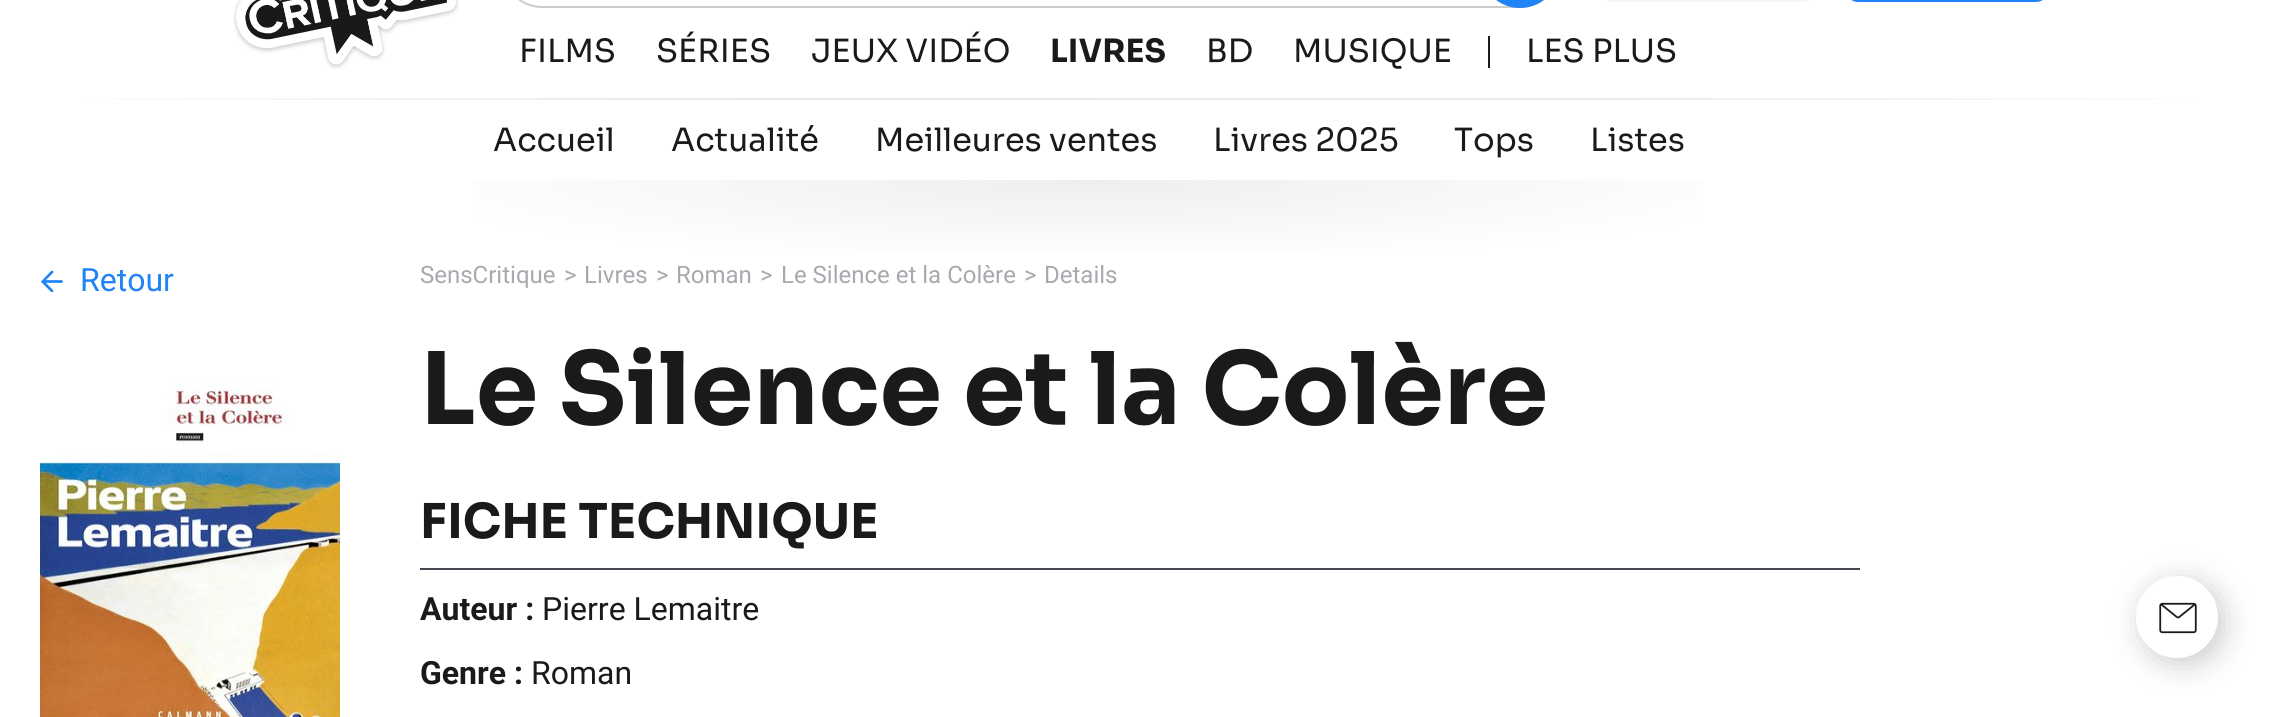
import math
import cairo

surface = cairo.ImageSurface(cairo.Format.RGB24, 2278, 717)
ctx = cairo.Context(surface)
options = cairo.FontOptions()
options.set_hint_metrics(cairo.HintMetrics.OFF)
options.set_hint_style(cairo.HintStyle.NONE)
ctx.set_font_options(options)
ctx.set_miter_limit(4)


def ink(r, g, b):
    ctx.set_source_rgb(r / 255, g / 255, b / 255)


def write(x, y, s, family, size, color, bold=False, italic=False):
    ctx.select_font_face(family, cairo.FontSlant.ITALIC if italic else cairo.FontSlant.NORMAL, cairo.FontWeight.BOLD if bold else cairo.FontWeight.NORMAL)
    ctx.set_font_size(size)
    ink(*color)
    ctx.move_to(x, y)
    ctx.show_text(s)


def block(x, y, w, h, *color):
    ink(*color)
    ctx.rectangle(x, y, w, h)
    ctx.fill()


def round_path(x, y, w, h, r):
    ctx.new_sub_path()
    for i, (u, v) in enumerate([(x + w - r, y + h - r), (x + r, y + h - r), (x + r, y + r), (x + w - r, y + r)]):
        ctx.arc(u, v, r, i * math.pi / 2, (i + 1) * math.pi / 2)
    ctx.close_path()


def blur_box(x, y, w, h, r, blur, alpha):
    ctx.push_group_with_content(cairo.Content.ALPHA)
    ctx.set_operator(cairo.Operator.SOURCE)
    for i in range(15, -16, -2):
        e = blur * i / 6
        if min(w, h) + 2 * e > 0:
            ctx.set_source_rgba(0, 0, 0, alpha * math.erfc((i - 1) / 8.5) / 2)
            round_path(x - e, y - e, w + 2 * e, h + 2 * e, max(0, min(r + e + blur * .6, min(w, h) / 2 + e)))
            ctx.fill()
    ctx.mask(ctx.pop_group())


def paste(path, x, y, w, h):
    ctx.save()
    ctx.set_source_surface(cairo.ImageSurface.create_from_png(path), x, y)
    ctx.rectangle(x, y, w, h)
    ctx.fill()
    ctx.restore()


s1 = dict(family="Sora", size=32, color=(26, 26, 26))
s2 = dict(family="Sora", size=32, color=(26, 26, 26), bold=True)
s3 = dict(family="Roboto", size=32, color=(32, 131, 246))
s4 = dict(family="Roboto", size=24, color=(166, 170, 175))
s5 = dict(family="Sora", size=100, color=(26, 26, 26), bold=True)
s6 = dict(family="Sora", size=48, color=(26, 26, 26), bold=True)
s7 = dict(family="Roboto", size=32, color=(26, 26, 26), bold=True)
s8 = dict(family="Roboto", size=32, color=(26, 26, 26))

ink(255, 255, 255)
ctx.paint()
round_path(503, -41, 1056, 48, 39)
ink(204, 204, 204)
ctx.stroke()
ink(32, 131, 246)
round_path(1480, -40, 80, 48, 40)
ctx.fill()
round_path(1602, -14, 210, 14, 10)
ink(245, 245, 245)
ctx.set_line_width(4)
ctx.stroke()
round_path(1848, -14, 198, 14, 10)
ink(32, 131, 246)
ctx.stroke()
paste("pic1.png", 233, 0, 226, 69)
write(519, 62, "FILMS", **s1)
write(656, 62, "SÉRIES", **s1)
write(811, 62, "JEUX VIDÉO", **s1)
write(1050, 62, "LIVRES", **s2)
write(1206, 62, "BD", **s1)
write(1293, 62, "MUSIQUE", **s1)
block(1488, 36, 2, 32, 26, 26, 26)
write(1526, 62, "LES PLUS", **s1)
write(493, 151, "Accueil", **s1)
write(671, 151, "Actualité", **s1)
write(875, 151, "Meilleures ventes", **s1)
write(1213, 151, "Livres 2025", **s1)
write(1454, 151, "Tops", **s1)
write(1590, 151, "Listes", **s1)
gradient = cairo.RadialGradient(0, 0, 0, 0, 0, 1)
gradient.set_matrix(cairo.Matrix(1 / 706, 0, 0, 1 / 83, -1 * 1088 / 706, -1 * 180 / 83))
gradient.add_color_stop_rgba(0, 0.89, 0.89, 0.89, 0.6)
gradient.add_color_stop_rgba(1, 0.89, 0.89, 0.89, 0)
ctx.set_source(gradient)
ctx.rectangle(473, 180, 1230, 73)
ctx.fill()
gradient = cairo.LinearGradient(0, 99, 2278, 99)
gradient.add_color_stop_rgba(0, 1, 1, 1, 1)
gradient.add_color_stop_rgba(0.33, 0.91, 0.91, 0.91, 1)
gradient.add_color_stop_rgba(0.67, 0.914, 0.914, 0.918, 1)
gradient.add_color_stop_rgba(1, 1, 1, 1, 1)
ctx.set_source(gradient)
ctx.rectangle(82, 98, 2111, 2)
ctx.fill()
paste("pic2.png", 41, 270, 22, 22)
write(80, 291, "Retour", **s3)
paste("pic3.png", 40, 382, 300, 335)
write(420, 283, "SensCritique", **s4)
write(564, 283, ">", **s4)
write(584, 283, "Livres", **s4)
write(656, 283, ">", **s4)
write(676, 283, "Roman", **s4)
write(760, 283, ">", **s4)
write(781, 283, "Le Silence et la Colère", **s4)
write(1024, 283, ">", **s4)
write(1044, 283, "Details", **s4)
write(420, 424, "Le Silence et la Colère", **s5)
block(420, 568, 1440, 2, 67, 72, 80)
write(420, 538, "FICHE TECHNIQUE", **s6)
write(420, 620, "Auteur :", **s7)
write(542, 620, "Pierre Lemaitre", **s8)
write(420, 684, "Genre :", **s7)
write(531, 684, "Roman", **s8)
ink(0, 0, 0)
blur_box(2142, 582, 82, 82, 41, 15, 0.2)
ink(255, 255, 255)
ctx.arc(2177, 617, 41, 0, 2 * math.pi)
ctx.fill()
paste("pic4.png", 2159, 602, 38, 32)
surface.write_to_png("screenshot.png")
